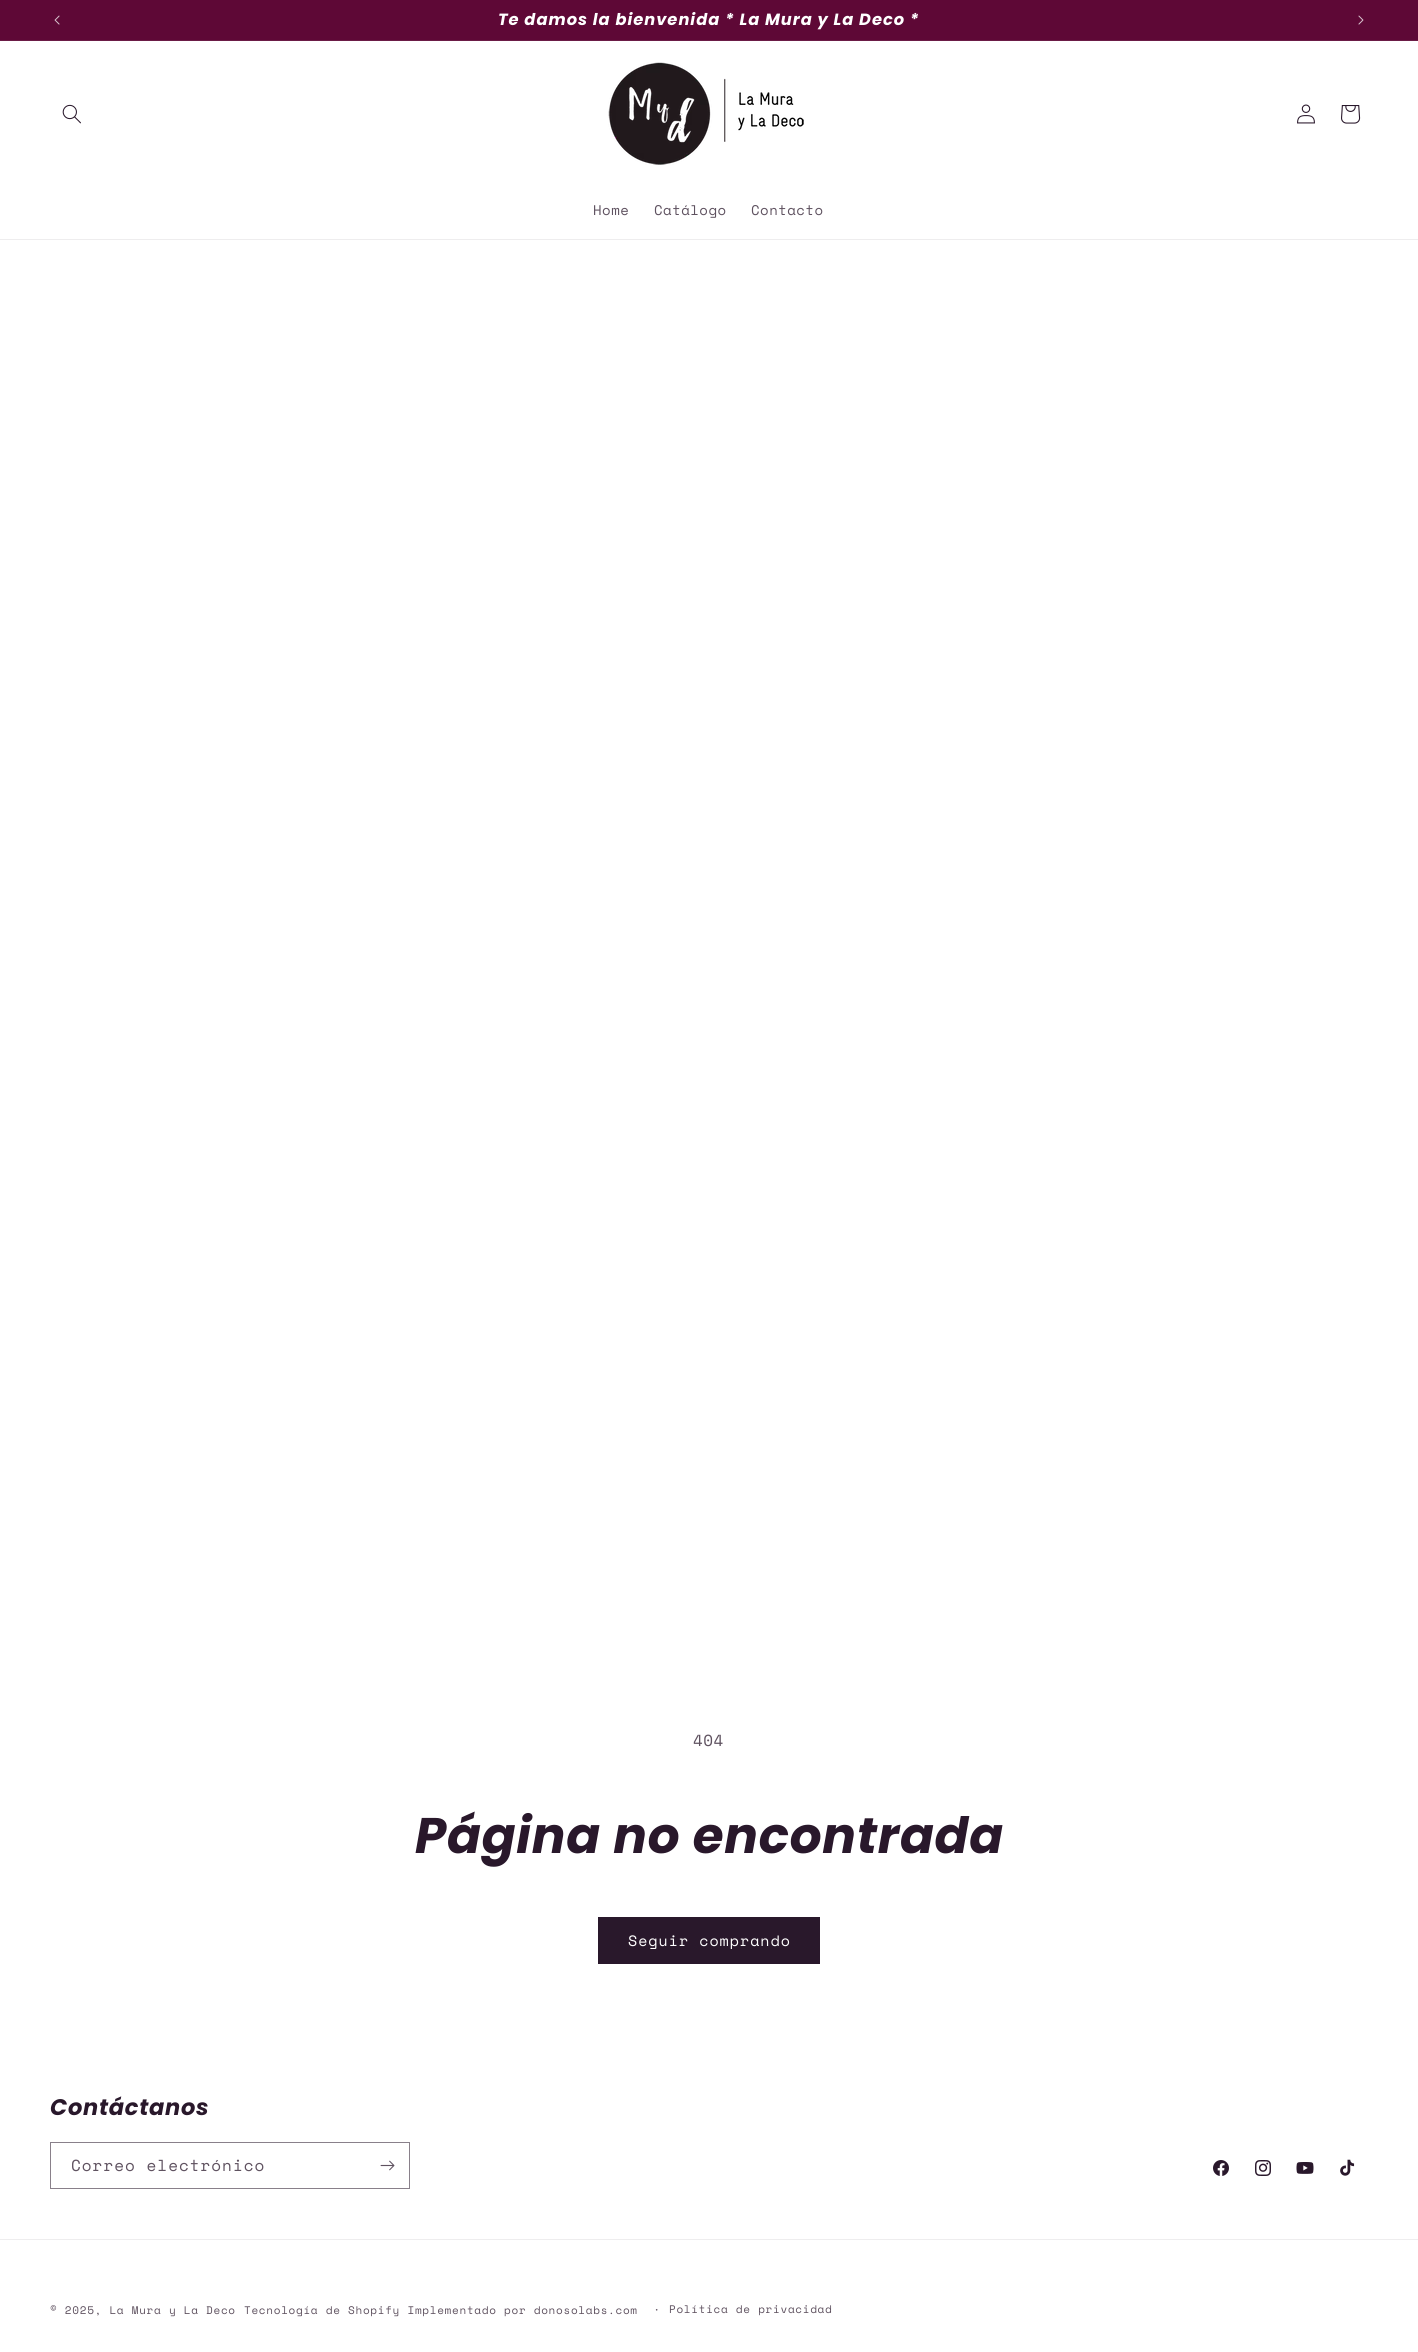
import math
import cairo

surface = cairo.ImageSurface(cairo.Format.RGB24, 1418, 2352)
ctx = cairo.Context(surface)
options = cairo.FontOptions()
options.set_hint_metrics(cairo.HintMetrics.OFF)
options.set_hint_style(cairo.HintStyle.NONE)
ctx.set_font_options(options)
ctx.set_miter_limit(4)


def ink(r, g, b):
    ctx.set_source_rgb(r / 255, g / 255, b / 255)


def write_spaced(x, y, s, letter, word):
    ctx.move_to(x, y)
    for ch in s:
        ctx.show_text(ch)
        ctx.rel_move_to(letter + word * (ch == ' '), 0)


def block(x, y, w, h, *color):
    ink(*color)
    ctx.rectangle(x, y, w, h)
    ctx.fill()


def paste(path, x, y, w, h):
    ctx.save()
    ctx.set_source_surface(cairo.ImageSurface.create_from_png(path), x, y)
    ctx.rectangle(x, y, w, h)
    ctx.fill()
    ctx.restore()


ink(255, 255, 255)
ctx.paint()
block(0, 0, 1418, 40, 94, 8, 54)
block(0, 40, 1418, 1, 107, 28, 70)
paste("pic1.png", 54, 15, 6, 10)
ctx.select_font_face("Poppins", cairo.FontSlant.ITALIC, cairo.FontWeight.BOLD)
ctx.set_font_size(16.25)
ink(255, 255, 255)
write_spaced(498, 25, "Te damos la bienvenida * La Mura y La Deco *", 1, 0)
paste("pic2.png", 1358, 15, 6, 10)
block(0, 239, 1418, 1, 238, 237, 238)
paste("pic3.png", 62, 104, 19, 20)
paste("pic4.png", 608, 62, 196, 103)
paste("pic5.png", 1297, 104, 18, 20)
paste("pic6.png", 1341, 105, 20, 19)
ctx.select_font_face("Space Mono")
ctx.set_font_size(14)
ink(95, 82, 96)
write_spaced(593, 215, "Home", 0.5, 0)
write_spaced(654, 215, "Catálogo", 0.5, 0)
write_spaced(751, 215, "Contacto", 0.5, 0)
ctx.set_font_size(16)
write_spaced(693, 1746, "404", 0.5, 0)
ctx.select_font_face("Poppins", cairo.FontSlant.ITALIC, cairo.FontWeight.BOLD)
ctx.set_font_size(50)
ink(41, 24, 43)
write_spaced(415, 1853, "Página no encontrada", 0.75, 0)
block(598, 1917, 222, 47, 41, 24, 43)
ctx.select_font_face("Space Mono")
ctx.set_font_size(15)
ink(255, 255, 255)
write_spaced(628, 1946, "Seguir comprando", 1, 0)
ctx.select_font_face("Poppins", cairo.FontSlant.ITALIC, cairo.FontWeight.BOLD)
ctx.set_font_size(22.5)
ink(41, 24, 43)
write_spaced(50, 2115, "Contáctanos", 0.75, 0)
ctx.rectangle(50.5, 2142.5, 359, 46)
ink(137, 128, 138)
ctx.set_line_width(1)
ctx.stroke()
ctx.select_font_face("Space Mono")
ctx.set_font_size(16)
ink(95, 82, 96)
write_spaced(71, 2171, "Correo electrónico", 1, 0)
paste("pic7.png", 380, 2160, 15, 11)
paste("pic8.png", 1213, 2160, 16, 16)
paste("pic9.png", 1255, 2160, 16, 16)
paste("pic10.png", 1296, 2162, 18, 12)
paste("pic11.png", 1340, 2159, 15, 17)
block(0, 2239, 1418, 1, 238, 237, 238)
ctx.set_font_size(11)
ink(95, 82, 96)
write_spaced(50, 2314, "© 2025, La Mura y La Deco", 0.7, 0)
write_spaced(244, 2314, "Tecnología de Shopify Implementado por donosolabs.com", 0.7, 0)
ctx.set_font_size(12)
write_spaced(653, 2314, "·", 0.7, 0)
ctx.set_font_size(11)
write_spaced(669, 2313, "Política de privacidad", 0.7, 0)
surface.write_to_png("screenshot.png")
